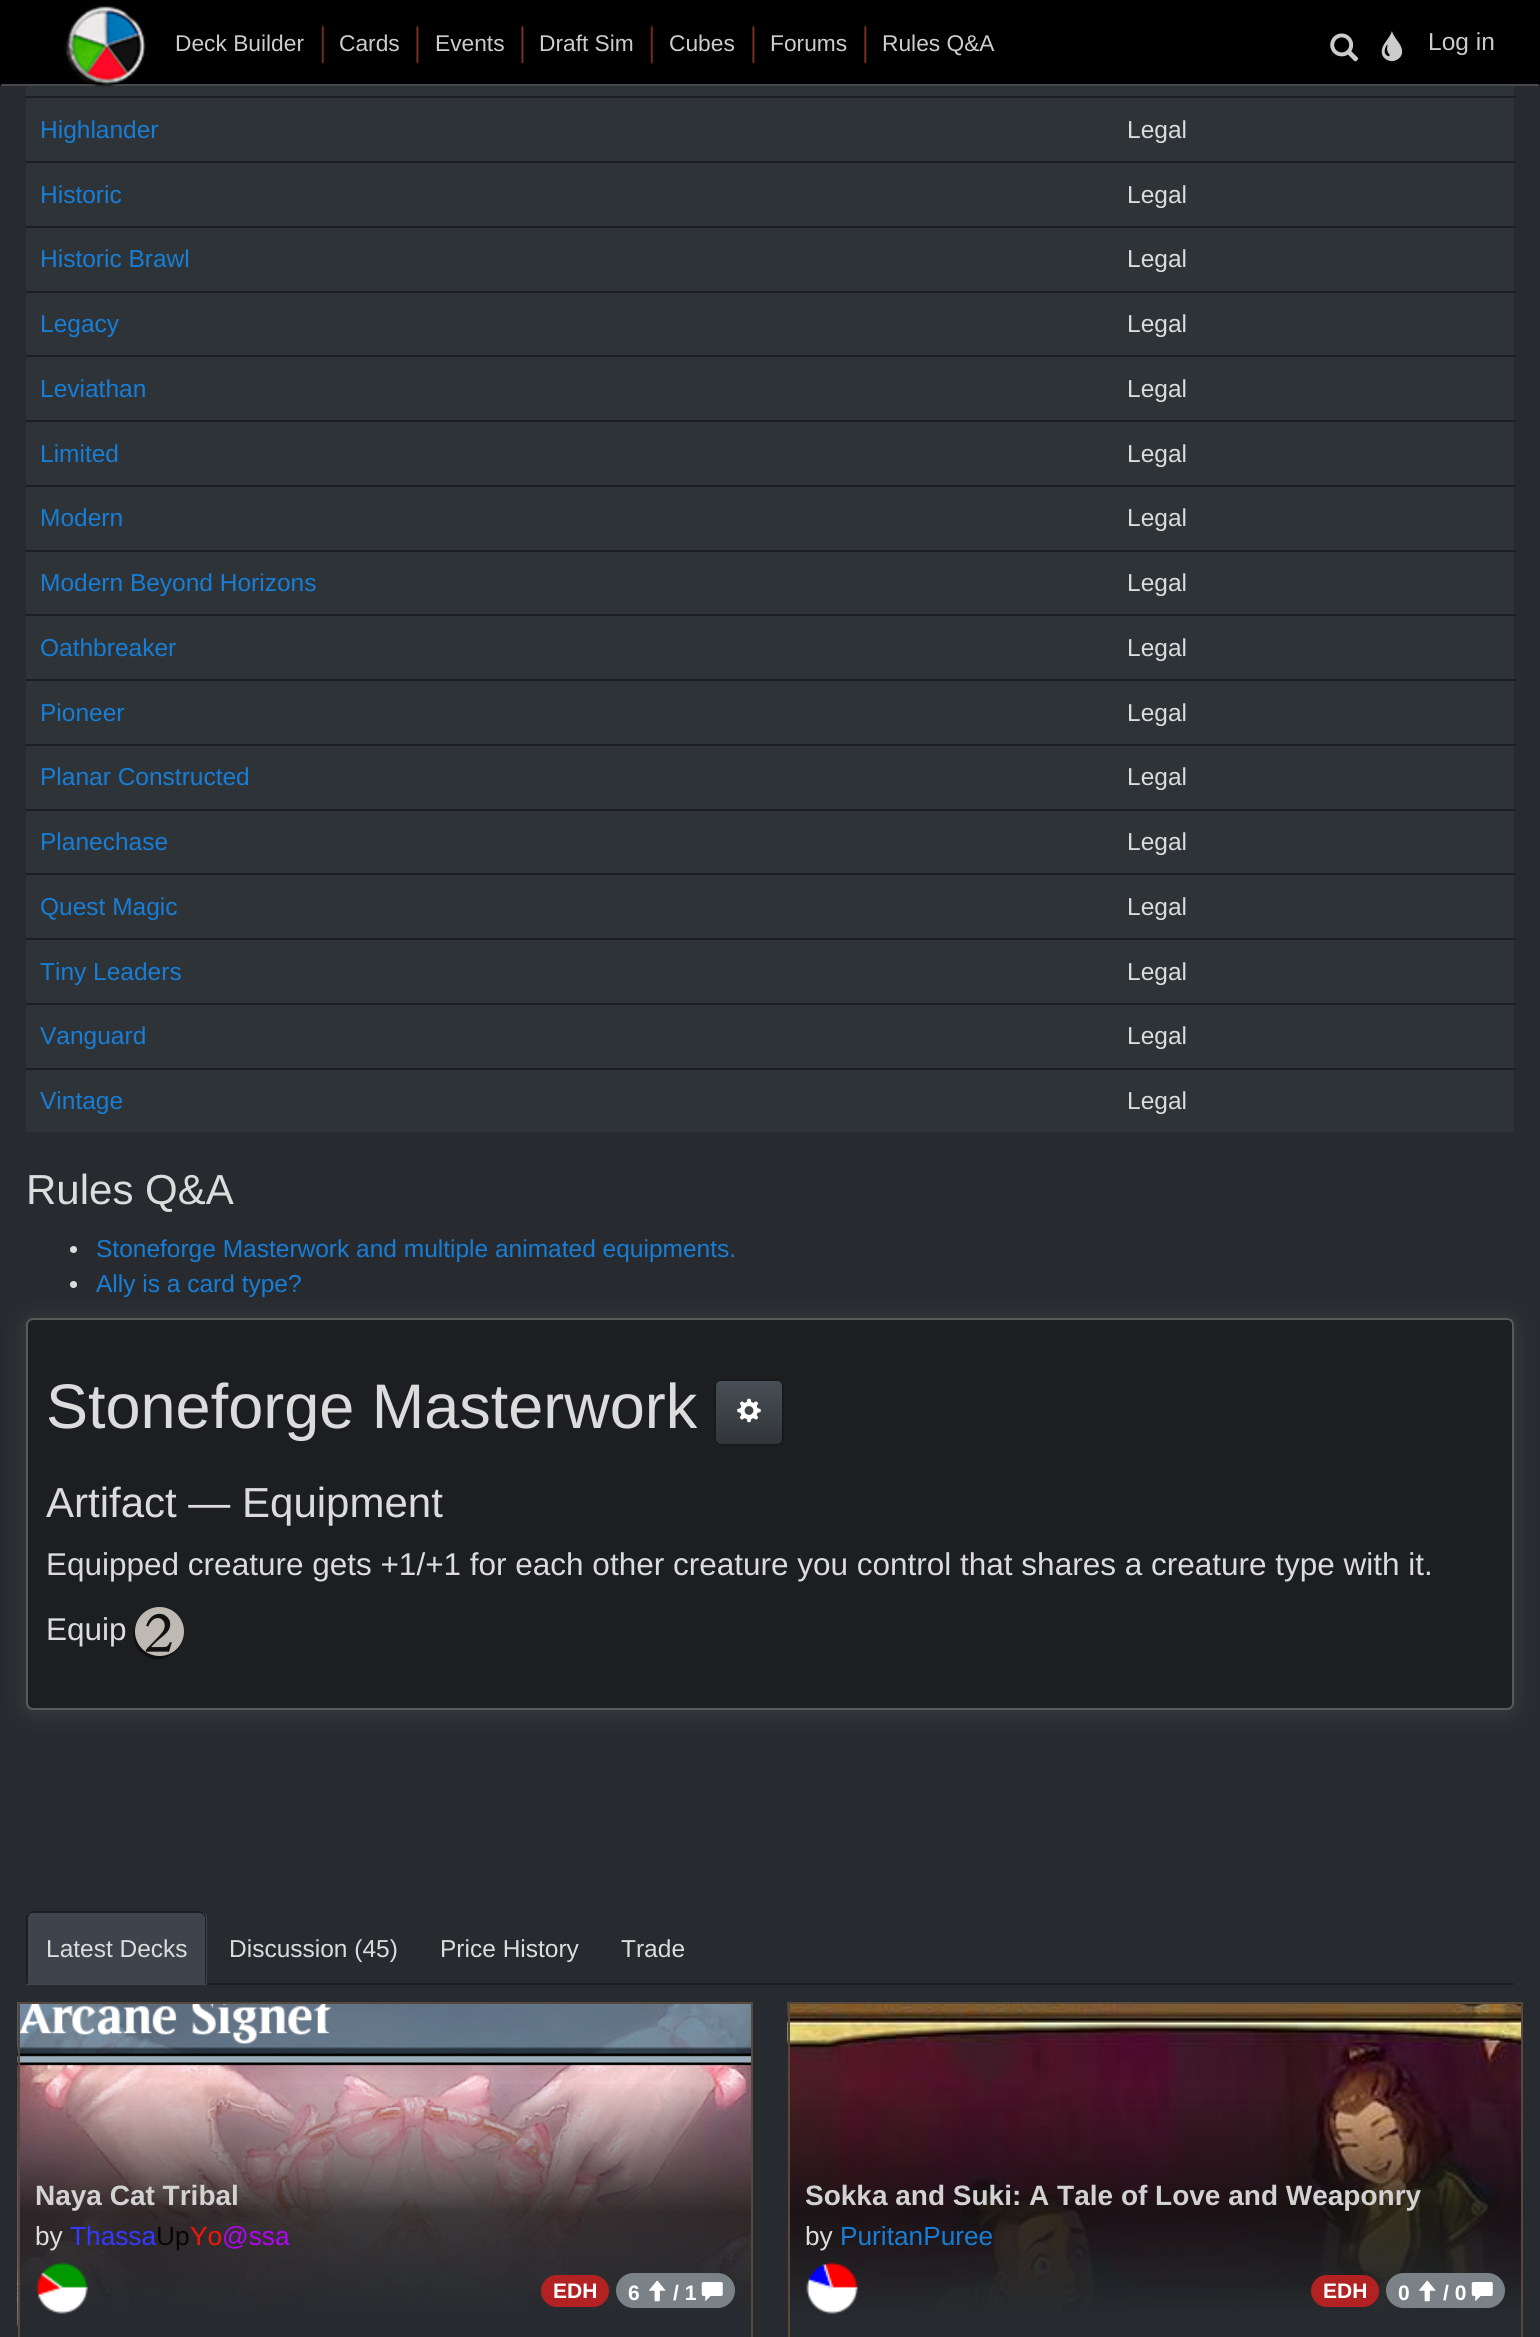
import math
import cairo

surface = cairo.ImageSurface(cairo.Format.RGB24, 1540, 2337)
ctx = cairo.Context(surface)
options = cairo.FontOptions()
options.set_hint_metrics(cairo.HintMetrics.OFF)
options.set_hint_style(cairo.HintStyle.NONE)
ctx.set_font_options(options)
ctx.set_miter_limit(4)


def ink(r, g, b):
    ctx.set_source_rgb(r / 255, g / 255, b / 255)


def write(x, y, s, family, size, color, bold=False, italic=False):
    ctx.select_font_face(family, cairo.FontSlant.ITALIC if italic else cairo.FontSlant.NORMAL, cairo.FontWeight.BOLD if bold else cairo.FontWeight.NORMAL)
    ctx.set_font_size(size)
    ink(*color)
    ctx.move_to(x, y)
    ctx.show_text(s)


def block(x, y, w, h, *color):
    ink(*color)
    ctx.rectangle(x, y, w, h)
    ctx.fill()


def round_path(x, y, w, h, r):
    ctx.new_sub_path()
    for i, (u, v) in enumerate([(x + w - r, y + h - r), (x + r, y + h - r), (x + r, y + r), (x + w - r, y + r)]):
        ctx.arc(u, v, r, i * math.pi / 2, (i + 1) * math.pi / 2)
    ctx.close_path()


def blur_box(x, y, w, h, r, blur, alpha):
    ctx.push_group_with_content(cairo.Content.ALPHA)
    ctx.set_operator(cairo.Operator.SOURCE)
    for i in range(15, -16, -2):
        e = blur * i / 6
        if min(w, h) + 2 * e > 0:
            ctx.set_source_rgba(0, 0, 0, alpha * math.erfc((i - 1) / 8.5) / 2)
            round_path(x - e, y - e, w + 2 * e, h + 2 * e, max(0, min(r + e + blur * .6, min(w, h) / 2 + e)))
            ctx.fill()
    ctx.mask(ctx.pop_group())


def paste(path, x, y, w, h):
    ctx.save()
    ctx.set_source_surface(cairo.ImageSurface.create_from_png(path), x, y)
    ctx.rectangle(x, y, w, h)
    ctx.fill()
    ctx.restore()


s1 = dict(family="Liberation Sans", size=22.75, color=(204, 204, 204))
s2 = dict(family="Liberation Sans", size=24.5, color=(204, 204, 204))
s3 = dict(family="Liberation Sans", size=24.5, color=(24, 125, 212))
s4 = dict(family="Liberation Sans", size=24.5, color=(220, 220, 220))
s5 = dict(family="Liberation Sans", size=42, color=(220, 220, 220))
s6 = dict(family="Liberation Sans", size=63, color=(220, 220, 220))
s7 = dict(family="Liberation Sans", size=31.5, color=(220, 220, 220))
s8 = dict(family="Liberation Sans", size=28, color=(210, 210, 210), bold=True)
s9 = dict(family="Liberation Sans", size=26.25, color=(220, 220, 220))
s10 = dict(family="Liberation Sans", size=26.25, color=(51, 57, 255))
s11 = dict(family="Liberation Sans", size=26.25, color=(6, 6, 6))
s12 = dict(family="Liberation Sans", size=26.25, color=(242, 24, 6))
s13 = dict(family="Liberation Sans", size=26.25, color=(176, 6, 242))
s14 = dict(family="Liberation Sans", size=21, color=(255, 255, 255), bold=True)
s15 = dict(family="Liberation Sans", size=26.25, color=(24, 125, 212))

ink(39, 43, 48)
ctx.paint()
block(0, 0, 1540, 86, 0, 0, 0)
ink(72, 72, 72)
ctx.new_path()
ctx.move_to(1540, 86)
ctx.line_to(0, 86)
ctx.line_to(2, 84)
ctx.line_to(1538, 84)
ctx.close_path()
ctx.fill()
ctx.set_source_rgba(0, 0, 0, 0.6)
ctx.new_path()
ctx.move_to(0, 86)
ctx.line_to(0, 0)
ctx.line_to(2, 2)
ctx.line_to(2, 84)
ctx.close_path()
ctx.fill()
block(26, 86, 1488, 1046, 46, 51, 56)
paste("pic1.png", 64, 6, 82, 81)
write(175, 51, "Deck Builder", **s1)
paste("pic2.png", 321, 25, 4, 39)
write(339, 51, "Cards", **s1)
paste("pic3.png", 416, 25, 3, 39)
write(435, 51, "Events", **s1)
paste("pic4.png", 521, 25, 3, 39)
write(539, 51, "Draft Sim", **s1)
paste("pic2.png", 650, 25, 4, 39)
write(669, 51, "Cubes", **s1)
paste("pic5.png", 752, 25, 3, 39)
write(770, 51, "Forums", **s1)
paste("pic6.png", 864, 25, 3, 39)
write(882, 51, "Rules Q&A", **s1)
paste("pic7.png", 1330, 33, 29, 29)
paste("pic8.png", 1381, 31, 22, 31)
write(1428, 50, "Log in", **s2)
write(40, 138, "Highlander", **s3)
block(26, 96, 1490, 2, 28, 30, 34)
write(1127, 138, "Legal", **s4)
write(40, 203, "Historic", **s3)
block(26, 161, 1490, 2, 28, 30, 34)
write(1127, 203, "Legal", **s4)
write(40, 267, "Historic Brawl", **s3)
block(26, 226, 1490, 2, 28, 30, 34)
write(1127, 267, "Legal", **s4)
write(40, 332, "Legacy", **s3)
block(26, 291, 1490, 2, 28, 30, 34)
write(1127, 332, "Legal", **s4)
write(40, 397, "Leviathan", **s3)
block(26, 355, 1490, 2, 28, 30, 34)
write(1127, 397, "Legal", **s4)
write(40, 462, "Limited", **s3)
block(26, 420, 1490, 2, 28, 30, 34)
write(1127, 462, "Legal", **s4)
write(40, 526, "Modern", **s3)
block(26, 485, 1490, 2, 28, 30, 34)
write(1127, 526, "Legal", **s4)
write(40, 591, "Modern Beyond Horizons", **s3)
block(26, 550, 1490, 2, 28, 30, 34)
write(1127, 591, "Legal", **s4)
write(40, 656, "Oathbreaker", **s3)
block(26, 614, 1490, 2, 28, 30, 34)
write(1127, 656, "Legal", **s4)
write(40, 721, "Pioneer", **s3)
block(26, 679, 1490, 2, 28, 30, 34)
write(1127, 721, "Legal", **s4)
write(40, 785, "Planar Constructed", **s3)
block(26, 744, 1490, 2, 28, 30, 34)
write(1127, 785, "Legal", **s4)
write(40, 850, "Planechase", **s3)
block(26, 809, 1490, 2, 28, 30, 34)
write(1127, 850, "Legal", **s4)
write(40, 915, "Quest Magic", **s3)
block(26, 873, 1490, 2, 28, 30, 34)
write(1127, 915, "Legal", **s4)
write(40, 980, "Tiny Leaders", **s3)
block(26, 938, 1490, 2, 28, 30, 34)
write(1127, 980, "Legal", **s4)
write(40, 1044, "Vanguard", **s3)
block(26, 1003, 1490, 2, 28, 30, 34)
write(1127, 1044, "Legal", **s4)
write(40, 1109, "Vintage", **s3)
block(26, 1068, 1490, 2, 28, 30, 34)
write(1127, 1109, "Legal", **s4)
write(26, 1204, "Rules Q&A", **s5)
ctx.new_path()
ctx.arc(73.5, 1249.5, 3.5, 0, 2 * math.pi)
ctx.fill()
write(96, 1257, "Stoneforge Masterwork and multiple animated equipments.", **s3)
ink(220, 220, 220)
ctx.new_path()
ctx.arc(73.5, 1284.5, 3.5, 0, 2 * math.pi)
ctx.fill()
write(96, 1292, "Ally is a card type?", **s3)
ink(131, 131, 131)
blur_box(26, 1320, 1488, 392, 7, 10.5, 0.25)
ink(28, 30, 34)
round_path(27, 1319, 1486, 390, 6)
ctx.fill_preserve()
ink(90, 90, 90)
ctx.stroke()
write(46, 1428, "Stoneforge Masterwork", **s6)
ink(58, 63, 68)
round_path(714, 1379, 70, 67, 7)
ctx.fill()
gradient = cairo.LinearGradient(749, 1381, 749, 1444)
gradient.add_color_stop_rgba(0, 0.282, 0.306, 0.333, 1)
gradient.add_color_stop_rgba(0.6, 0.227, 0.247, 0.267, 1)
gradient.add_color_stop_rgba(1, 0.192, 0.208, 0.224, 1)
ctx.set_source(gradient)
ctx.rectangle(716, 1381, 66, 63)
ctx.fill()
round_path(715, 1380, 68, 65, 6)
ctx.set_source_rgba(0, 0, 0, 0.6)
ctx.stroke()
paste("pic9.png", 737, 1398, 24, 25)
write(46, 1517, "Artifact — Equipment", **s5)
write(46, 1575, "Equipped creature gets +1/+1 for each other creature you control that shares a creature type with it.", **s7)
write(46, 1640, "Equip", **s7)
ink(17, 17, 17)
ctx.new_path()
ctx.move_to(135, 1636)
ctx.curve_to(136, 1642, 139, 1647, 143, 1651)
ctx.curve_to(161, 1666, 188, 1650, 184, 1628)
ctx.curve_to(188, 1659, 141, 1666, 135, 1636)
ctx.close_path()
ctx.fill()
ctx.new_path()
ctx.move_to(137, 1622)
ctx.curve_to(123, 1644, 150, 1670, 171, 1655)
ctx.curve_to(175, 1652, 178, 1648, 180, 1644)
ctx.curve_to(165, 1669, 125, 1649, 137, 1622)
ctx.close_path()
ctx.fill()
ink(190, 185, 178)
ctx.arc(159.5, 1631.5, 24.5, 0, 2 * math.pi)
ctx.fill()
paste("pic10.png", 145, 1613, 27, 39)
block(207, 1983, 1307, 2, 28, 30, 34)
ink(62, 68, 76)
ctx.new_path()
ctx.move_to(33, 1911)
ctx.line_to(200, 1911)
ctx.curve_to(204, 1911, 207, 1914, 207, 1918)
ctx.line_to(207, 1985)
ctx.line_to(26, 1985)
ctx.line_to(26, 1918)
ctx.curve_to(26, 1914, 29, 1911, 33, 1911)
ctx.close_path()
ctx.fill()
ink(28, 30, 34)
ctx.new_path()
ctx.move_to(33, 1911)
ctx.curve_to(31, 1911, 29, 1912, 28, 1913)
ctx.line_to(30, 1914)
ctx.curve_to(30, 1913, 32, 1913, 33, 1913)
ctx.line_to(200, 1913)
ctx.line_to(203, 1914)
ctx.line_to(204, 1913)
ctx.curve_to(203, 1912, 202, 1911, 200, 1911)
ctx.close_path()
ctx.fill()
ctx.new_path()
ctx.move_to(204, 1913)
ctx.curve_to(205, 1914, 206, 1916, 206, 1918)
ctx.line_to(206, 1984)
ctx.line_to(205, 1983)
ctx.line_to(205, 1917)
ctx.line_to(203, 1914)
ctx.close_path()
ctx.fill()
ctx.new_path()
ctx.move_to(26, 1916)
ctx.line_to(28, 1913)
ctx.line_to(30, 1914)
ctx.line_to(28, 1917)
ctx.line_to(28, 1983)
ctx.line_to(27, 1984)
ctx.line_to(26, 1984)
ctx.close_path()
ctx.fill()
write(46, 1957, "Latest Decks", **s4)
write(229, 1957, "Discussion (45)", **s4)
write(440, 1957, "Price History", **s4)
write(621, 1957, "Trade", **s4)
paste("pic11.png", 17, 2002, 734, 324)
gradient = cairo.LinearGradient(394, 2081, 394, 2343)
gradient.add_color_stop_rgba(0, 0.071, 0.067, 0.067, 0)
gradient.add_color_stop_rgba(0.5, 0.071, 0.067, 0.067, 0.82)
gradient.add_color_stop_rgba(0.9, 0.153, 0.169, 0.188, 1)
ctx.set_source(gradient)
ctx.rectangle(20, 2084, 731, 242)
ctx.fill()
ctx.rectangle(19, 2003, 733, 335)
ink(86, 72, 58)
ctx.stroke()
write(35, 2205, "Naya Cat Tribal", **s8)
write(35, 2245, "by", **s9)
write(70, 2245, "Thassa", **s10)
write(156, 2245, "Up", **s11)
write(190, 2245, "Yo", **s12)
write(222, 2245, "@ssa", **s13)
paste("pic12.png", 36, 2262, 52, 52)
ink(178, 34, 34)
round_path(541, 2275, 68, 32, 16)
ctx.fill()
write(553, 2298, "EDH", **s14)
ink(122, 130, 136)
round_path(616, 2273, 119, 35, 17.5)
ctx.fill()
write(628, 2300, "6", **s14)
paste("pic13.png", 649, 2280, 17, 22)
write(673, 2300, "/ 1", **s14)
paste("pic14.png", 701, 2282, 22, 20)
paste("pic15.png", 787, 2002, 734, 324)
gradient = cairo.LinearGradient(1164, 2081, 1164, 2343)
gradient.add_color_stop_rgba(0, 0.071, 0.067, 0.067, 0)
gradient.add_color_stop_rgba(0.5, 0.071, 0.067, 0.067, 0.82)
gradient.add_color_stop_rgba(0.9, 0.153, 0.169, 0.188, 1)
ctx.set_source(gradient)
ctx.rectangle(790, 2084, 731, 242)
ctx.fill()
ctx.rectangle(789, 2003, 733, 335)
ink(86, 72, 58)
ctx.stroke()
write(805, 2205, "Sokka and Suki: A Tale of Love and Weaponry", **s8)
write(805, 2245, "by", **s9)
write(840, 2245, "PuritanPuree", **s15)
paste("pic16.png", 806, 2262, 52, 52)
ink(178, 34, 34)
round_path(1311, 2275, 68, 32, 16)
ctx.fill()
write(1323, 2298, "EDH", **s14)
ink(122, 130, 136)
round_path(1386, 2273, 119, 35, 17.5)
ctx.fill()
write(1398, 2300, "0", **s14)
paste("pic13.png", 1419, 2280, 17, 22)
write(1443, 2300, "/ 0", **s14)
paste("pic14.png", 1471, 2282, 22, 20)
surface.write_to_png("screenshot.png")
